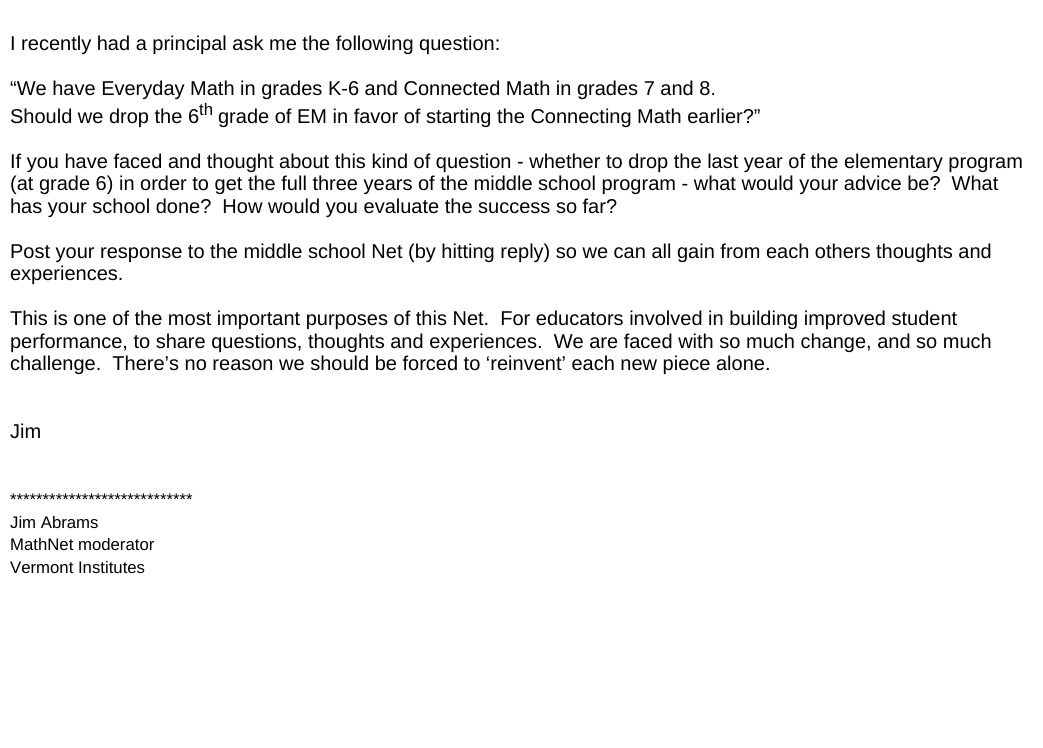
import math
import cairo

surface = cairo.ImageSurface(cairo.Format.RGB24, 1043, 748)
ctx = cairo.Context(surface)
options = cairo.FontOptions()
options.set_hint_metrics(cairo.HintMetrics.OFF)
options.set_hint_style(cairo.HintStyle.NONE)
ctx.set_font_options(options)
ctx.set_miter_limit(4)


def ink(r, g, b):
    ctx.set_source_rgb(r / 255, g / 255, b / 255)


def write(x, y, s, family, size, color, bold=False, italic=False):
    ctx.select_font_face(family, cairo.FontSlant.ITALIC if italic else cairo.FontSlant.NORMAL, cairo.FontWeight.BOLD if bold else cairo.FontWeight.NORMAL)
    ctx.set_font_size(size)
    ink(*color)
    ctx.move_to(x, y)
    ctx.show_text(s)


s1 = dict(family="Liberation Sans", size=20, color=(0, 0, 0))
s2 = dict(family="Liberation Sans", size=16.75, color=(0, 0, 0))

ink(255, 255, 255)
ctx.paint()
write(10, 50, "I recently had a principal ask me the following question:", **s1)
write(10, 95, "“We have Everyday Math in grades K-6 and Connected Math in grades 7 and 8.", **s1)
write(10, 123, "Should we drop the 6", **s1)
write(199, 115, "th", **s2)
write(218, 123, "grade of EM in favor of starting the Connecting Math earlier?”", **s1)
write(10, 168, "If you have faced and thought about this kind of question - whether to drop the last year of the elementary program", **s1)
write(10, 190, "(at grade 6) in order to get the full three years of the middle school program - what would your advice be?  What", **s1)
write(10, 213, "has your school done?  How would you evaluate the success so far?", **s1)
write(10, 258, "Post your response to the middle school Net (by hitting reply) so we can all gain from each others thoughts and", **s1)
write(10, 280, "experiences.", **s1)
write(10, 325, "This is one of the most important purposes of this Net.  For educators involved in building improved student", **s1)
write(10, 348, "performance, to share questions, thoughts and experiences.  We are faced with so much change, and so much", **s1)
write(10, 370, "challenge.  There’s no reason we should be forced to ‘reinvent’ each new piece alone.", **s1)
write(10, 438, "Jim", **s1)
write(10, 505, "****************************", **s2)
write(10, 528, "Jim Abrams", **s2)
write(10, 550, "MathNet moderator", **s2)
write(10, 573, "Vermont Institutes", **s2)
surface.write_to_png("screenshot.png")
